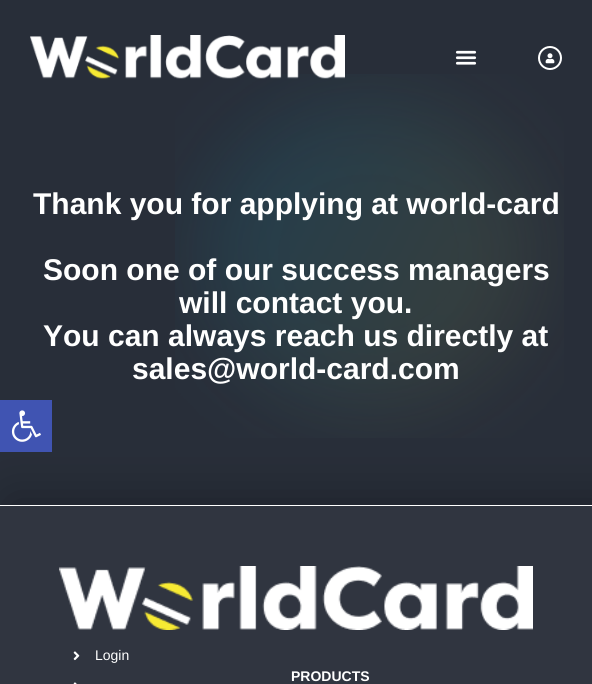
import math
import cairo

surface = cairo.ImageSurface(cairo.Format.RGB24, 592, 684)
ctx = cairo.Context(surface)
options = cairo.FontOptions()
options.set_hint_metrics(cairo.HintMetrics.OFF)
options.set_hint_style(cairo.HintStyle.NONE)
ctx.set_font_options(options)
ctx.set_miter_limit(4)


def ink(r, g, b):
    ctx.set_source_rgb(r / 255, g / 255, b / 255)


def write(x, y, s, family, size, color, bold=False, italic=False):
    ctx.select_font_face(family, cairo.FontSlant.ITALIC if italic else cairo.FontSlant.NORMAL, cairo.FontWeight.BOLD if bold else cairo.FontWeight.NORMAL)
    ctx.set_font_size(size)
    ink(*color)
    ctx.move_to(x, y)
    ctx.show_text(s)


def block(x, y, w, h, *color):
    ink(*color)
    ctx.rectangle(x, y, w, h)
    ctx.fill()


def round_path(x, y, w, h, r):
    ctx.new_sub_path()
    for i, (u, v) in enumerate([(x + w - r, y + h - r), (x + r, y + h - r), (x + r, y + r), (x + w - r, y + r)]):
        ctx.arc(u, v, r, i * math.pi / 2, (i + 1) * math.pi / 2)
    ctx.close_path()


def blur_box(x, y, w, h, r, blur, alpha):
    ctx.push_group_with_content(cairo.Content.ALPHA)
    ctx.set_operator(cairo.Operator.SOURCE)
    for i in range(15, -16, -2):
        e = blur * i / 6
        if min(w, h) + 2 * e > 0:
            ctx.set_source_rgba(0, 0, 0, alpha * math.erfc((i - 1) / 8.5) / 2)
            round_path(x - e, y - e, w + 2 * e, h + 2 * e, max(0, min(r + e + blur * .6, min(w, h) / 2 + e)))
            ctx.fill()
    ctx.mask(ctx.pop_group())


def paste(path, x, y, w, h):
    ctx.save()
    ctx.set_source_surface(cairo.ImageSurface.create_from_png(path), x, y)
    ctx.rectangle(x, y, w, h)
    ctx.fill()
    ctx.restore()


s1 = dict(family="Liberation Sans", size=30, color=(255, 255, 255), bold=True)
s2 = dict(family="Liberation Sans", size=14, color=(255, 255, 255))
s3 = dict(family="Liberation Sans", size=14, color=(255, 255, 255), bold=True)

ink(40, 46, 57)
ctx.paint()
paste("pic4.png", 175, 74, 389, 364)
paste("pic1.png", 30, 35, 315, 44)
paste("pic2.png", 455, 50, 22, 15)
ctx.arc(550, 58, 11, 0, 2 * math.pi)
ink(255, 255, 255)
ctx.stroke()
paste("pic3.png", 545, 53, 10, 11)
write(33, 214, "Thank you for applying at world-card", **s1)
write(43, 280, "Soon one of our success managers", **s1)
write(179, 313, "will contact you.", **s1)
write(43, 346, "You can always reach us directly at", **s1)
write(132, 379, "sales@world-card.com", **s1)
ink(0, 0, 0)
blur_box(10, 502, 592, 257, 0, 25, 0.3)
block(0, 400, 52, 52, 64, 84, 178)
paste("pic5.png", 11, 410, 30, 32)
block(0, 506, 592, 178, 48, 53, 64)
block(0, 505, 592, 1, 255, 255, 255)
paste("pic6.png", 59, 566, 474, 64)
paste("pic7.png", 73, 651, 7, 10)
write(95, 660, "Login", **s2)
paste("pic8.png", 73, 682, 4, 2)
write(291, 681, "PRODUCTS", **s3)
surface.write_to_png("screenshot.png")
